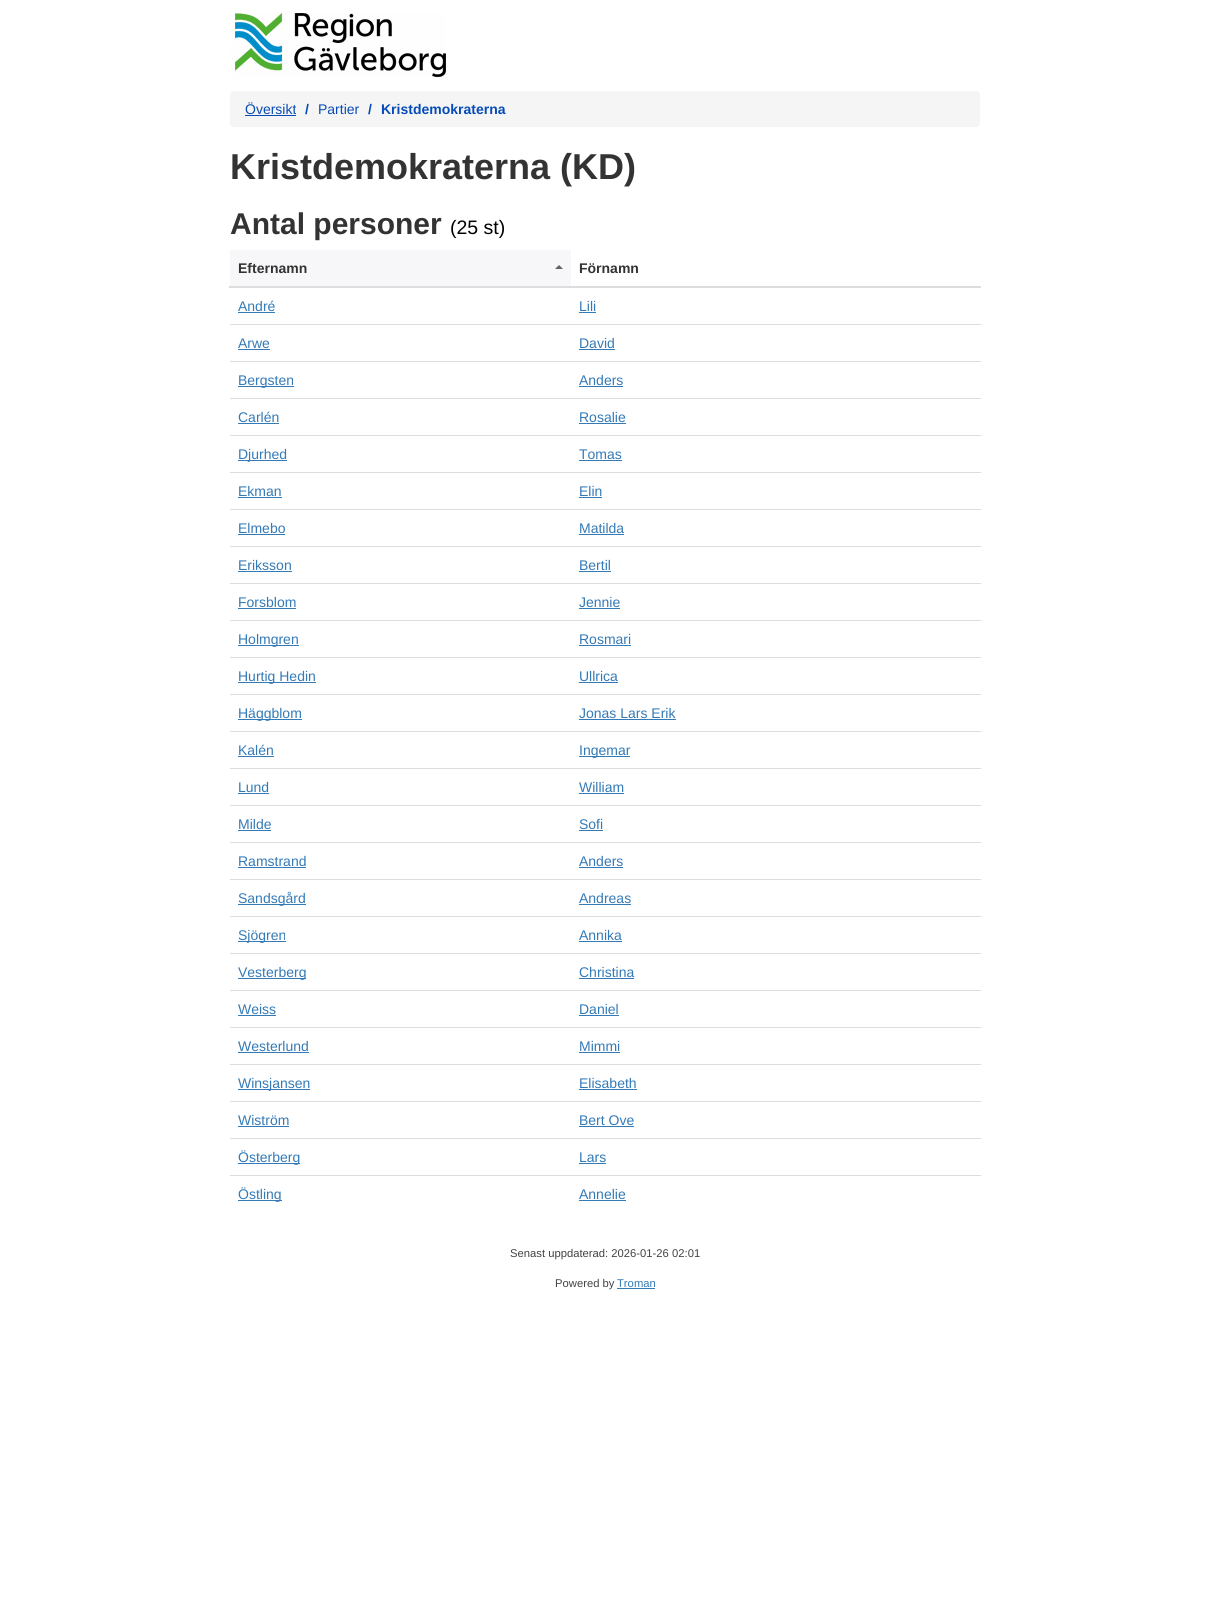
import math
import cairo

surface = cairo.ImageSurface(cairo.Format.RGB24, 1210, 1614)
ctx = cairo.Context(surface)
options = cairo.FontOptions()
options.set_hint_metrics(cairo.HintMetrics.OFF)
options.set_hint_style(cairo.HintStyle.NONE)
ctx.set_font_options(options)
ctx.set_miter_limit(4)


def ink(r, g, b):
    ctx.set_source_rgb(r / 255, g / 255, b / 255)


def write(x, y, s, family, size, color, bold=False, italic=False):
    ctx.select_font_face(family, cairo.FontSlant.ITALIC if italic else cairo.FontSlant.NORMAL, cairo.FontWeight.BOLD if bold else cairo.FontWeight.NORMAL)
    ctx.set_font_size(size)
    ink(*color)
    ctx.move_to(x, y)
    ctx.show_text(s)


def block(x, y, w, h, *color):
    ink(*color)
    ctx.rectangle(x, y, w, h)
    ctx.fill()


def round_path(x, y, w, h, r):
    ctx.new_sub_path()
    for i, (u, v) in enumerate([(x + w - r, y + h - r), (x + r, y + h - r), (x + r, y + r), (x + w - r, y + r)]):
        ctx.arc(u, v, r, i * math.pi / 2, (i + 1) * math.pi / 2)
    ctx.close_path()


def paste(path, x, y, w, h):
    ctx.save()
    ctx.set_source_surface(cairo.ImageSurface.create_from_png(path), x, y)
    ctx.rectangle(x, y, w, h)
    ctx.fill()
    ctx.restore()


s1 = dict(family="Liberation Sans", size=14, color=(7, 75, 184))
s2 = dict(family="Liberation Sans", size=14, color=(7, 75, 184), bold=True)
s3 = dict(family="Liberation Sans", size=36, color=(51, 51, 51), bold=True)
s4 = dict(family="Liberation Sans", size=30, color=(51, 51, 51), bold=True)
s5 = dict(family="Liberation Sans", size=19.5, color=(0, 0, 0))
s6 = dict(family="Liberation Sans", size=14, color=(51, 51, 51), bold=True)
s7 = dict(family="Liberation Sans", size=14, color=(51, 122, 183))
s8 = dict(family="Liberation Sans", size=11.25, color=(66, 66, 66))
s9 = dict(family="Liberation Sans", size=11.25, color=(51, 122, 183))

ink(255, 255, 255)
ctx.paint()
paste("pic1.png", 230, 12, 216, 65)
ink(245, 245, 245)
round_path(230, 91, 750, 36, 4)
ctx.fill()
write(245, 114, "Översikt", **s1)
block(245, 115, 51, 1, 7, 75, 184)
write(305, 114, "/", **s2)
write(318, 114, "Partier", **s1)
write(368, 114, "/", **s2)
write(381, 114, "Kristdemokraterna", **s2)
write(230, 179, "Kristdemokraterna (KD)", **s3)
write(230, 234, "Antal personer", **s4)
write(450, 234, "(25 st)", **s5)
block(230, 250, 341, 36, 247, 247, 249)
write(238, 273, "Efternamn", **s6)
ink(99, 99, 100)
ctx.new_path()
ctx.move_to(563, 269)
ctx.line_to(555, 269)
ctx.line_to(559, 265)
ctx.close_path()
ctx.fill()
block(229, 286, 752, 2, 221, 221, 221)
write(579, 273, "Förnamn", **s6)
write(238, 311, "André", **s7)
block(238, 312, 37, 1, 51, 122, 183)
write(579, 311, "Lili", **s7)
block(579, 312, 17, 1, 51, 122, 183)
write(238, 348, "Arwe", **s7)
block(238, 349, 32, 1, 51, 122, 183)
block(230, 324, 751, 1, 221, 221, 221)
write(579, 348, "David", **s7)
block(579, 349, 36, 1, 51, 122, 183)
block(238, 386, 56, 1, 51, 122, 183)
write(238, 385, "Bergsten", **s7)
block(230, 361, 751, 1, 221, 221, 221)
write(579, 385, "Anders", **s7)
block(579, 386, 44, 1, 51, 122, 183)
write(238, 422, "Carlén", **s7)
block(238, 423, 41, 1, 51, 122, 183)
block(230, 398, 751, 1, 221, 221, 221)
write(579, 422, "Rosalie", **s7)
block(579, 423, 47, 1, 51, 122, 183)
block(238, 460, 49, 1, 51, 122, 183)
write(238, 459, "Djurhed", **s7)
block(230, 435, 751, 1, 221, 221, 221)
write(579, 459, "Tomas", **s7)
block(579, 460, 43, 1, 51, 122, 183)
write(238, 496, "Ekman", **s7)
block(238, 497, 44, 1, 51, 122, 183)
block(230, 472, 751, 1, 221, 221, 221)
write(579, 496, "Elin", **s7)
block(579, 497, 23, 1, 51, 122, 183)
write(238, 533, "Elmebo", **s7)
block(238, 534, 47, 1, 51, 122, 183)
block(230, 509, 751, 1, 221, 221, 221)
write(579, 533, "Matilda", **s7)
block(579, 534, 45, 1, 51, 122, 183)
write(238, 570, "Eriksson", **s7)
block(238, 571, 54, 1, 51, 122, 183)
block(230, 546, 751, 1, 221, 221, 221)
write(579, 570, "Bertil", **s7)
block(579, 571, 32, 1, 51, 122, 183)
write(238, 607, "Forsblom", **s7)
block(238, 608, 58, 1, 51, 122, 183)
block(230, 583, 751, 1, 221, 221, 221)
write(579, 607, "Jennie", **s7)
block(579, 608, 41, 1, 51, 122, 183)
block(238, 645, 61, 1, 51, 122, 183)
write(238, 644, "Holmgren", **s7)
block(230, 620, 751, 1, 221, 221, 221)
write(579, 644, "Rosmari", **s7)
block(579, 645, 52, 1, 51, 122, 183)
block(238, 682, 78, 1, 51, 122, 183)
write(238, 681, "Hurtig Hedin", **s7)
block(230, 657, 751, 1, 221, 221, 221)
write(579, 681, "Ullrica", **s7)
block(579, 682, 39, 1, 51, 122, 183)
block(238, 719, 64, 1, 51, 122, 183)
write(238, 718, "Häggblom", **s7)
block(230, 694, 751, 1, 221, 221, 221)
write(579, 718, "Jonas Lars Erik", **s7)
block(579, 719, 97, 1, 51, 122, 183)
write(238, 755, "Kalén", **s7)
block(238, 756, 36, 1, 51, 122, 183)
block(230, 731, 751, 1, 221, 221, 221)
block(579, 756, 51, 1, 51, 122, 183)
write(579, 755, "Ingemar", **s7)
write(238, 792, "Lund", **s7)
block(238, 793, 31, 1, 51, 122, 183)
block(230, 768, 751, 1, 221, 221, 221)
write(579, 792, "William", **s7)
block(579, 793, 45, 1, 51, 122, 183)
write(238, 829, "Milde", **s7)
block(238, 830, 33, 1, 51, 122, 183)
block(230, 805, 751, 1, 221, 221, 221)
write(579, 829, "Sofi", **s7)
block(579, 830, 24, 1, 51, 122, 183)
write(238, 866, "Ramstrand", **s7)
block(238, 867, 68, 1, 51, 122, 183)
block(230, 842, 751, 1, 221, 221, 221)
write(579, 866, "Anders", **s7)
block(579, 867, 44, 1, 51, 122, 183)
block(238, 904, 68, 1, 51, 122, 183)
write(238, 903, "Sandsgård", **s7)
block(230, 879, 751, 1, 221, 221, 221)
write(579, 903, "Andreas", **s7)
block(579, 904, 52, 1, 51, 122, 183)
block(238, 941, 48, 1, 51, 122, 183)
write(238, 940, "Sjögren", **s7)
block(230, 916, 751, 1, 221, 221, 221)
write(579, 940, "Annika", **s7)
block(579, 941, 43, 1, 51, 122, 183)
block(238, 978, 68, 1, 51, 122, 183)
write(238, 977, "Vesterberg", **s7)
block(230, 953, 751, 1, 221, 221, 221)
write(579, 977, "Christina", **s7)
block(579, 978, 55, 1, 51, 122, 183)
write(238, 1014, "Weiss", **s7)
block(238, 1015, 38, 1, 51, 122, 183)
block(230, 990, 751, 1, 221, 221, 221)
write(579, 1014, "Daniel", **s7)
block(579, 1015, 40, 1, 51, 122, 183)
write(238, 1051, "Westerlund", **s7)
block(238, 1052, 71, 1, 51, 122, 183)
block(230, 1027, 751, 1, 221, 221, 221)
write(579, 1051, "Mimmi", **s7)
block(579, 1052, 41, 1, 51, 122, 183)
block(238, 1089, 72, 1, 51, 122, 183)
write(238, 1088, "Winsjansen", **s7)
block(230, 1064, 751, 1, 221, 221, 221)
write(579, 1088, "Elisabeth", **s7)
block(579, 1089, 58, 1, 51, 122, 183)
write(238, 1125, "Wiström", **s7)
block(238, 1126, 51, 1, 51, 122, 183)
block(230, 1101, 751, 1, 221, 221, 221)
write(579, 1125, "Bert Ove", **s7)
block(579, 1126, 55, 1, 51, 122, 183)
block(238, 1163, 62, 1, 51, 122, 183)
write(238, 1162, "Österberg", **s7)
block(230, 1138, 751, 1, 221, 221, 221)
write(579, 1162, "Lars", **s7)
block(579, 1163, 27, 1, 51, 122, 183)
block(238, 1200, 44, 1, 51, 122, 183)
write(238, 1199, "Östling", **s7)
block(230, 1175, 751, 1, 221, 221, 221)
write(579, 1199, "Annelie", **s7)
block(579, 1200, 47, 1, 51, 122, 183)
write(510, 1257, "Senast uppdaterad: 2026-01-26 02:01", **s8)
write(555, 1287, "Powered by", **s8)
write(617, 1287, "Troman", **s9)
block(617, 1288, 38, 1, 51, 122, 183)
surface.write_to_png("screenshot.png")
